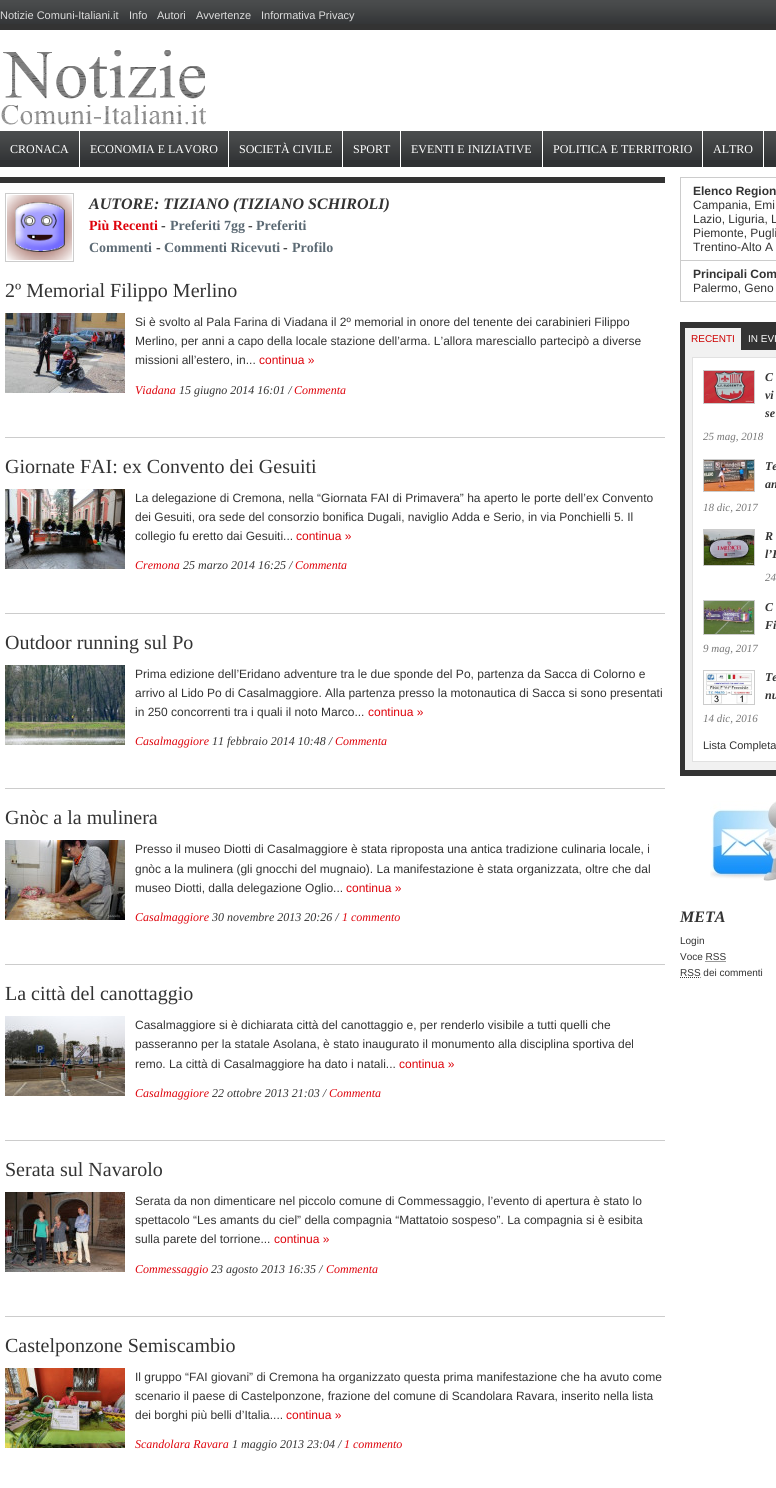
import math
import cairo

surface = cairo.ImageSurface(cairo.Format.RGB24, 776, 1488)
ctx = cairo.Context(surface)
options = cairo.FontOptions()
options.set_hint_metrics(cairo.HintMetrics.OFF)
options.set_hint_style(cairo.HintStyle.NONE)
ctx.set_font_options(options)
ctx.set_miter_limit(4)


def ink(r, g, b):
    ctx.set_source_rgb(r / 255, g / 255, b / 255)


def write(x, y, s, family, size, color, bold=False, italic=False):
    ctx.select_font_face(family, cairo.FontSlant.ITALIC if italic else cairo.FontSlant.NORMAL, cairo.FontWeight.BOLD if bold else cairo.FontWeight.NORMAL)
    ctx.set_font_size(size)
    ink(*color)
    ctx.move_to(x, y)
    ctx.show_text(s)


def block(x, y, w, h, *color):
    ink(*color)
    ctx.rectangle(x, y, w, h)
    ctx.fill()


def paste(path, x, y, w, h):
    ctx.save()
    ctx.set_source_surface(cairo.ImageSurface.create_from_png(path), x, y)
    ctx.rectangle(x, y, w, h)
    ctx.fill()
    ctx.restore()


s1 = dict(family="Liberation Sans", size=11, color=(221, 221, 221))
s2 = dict(family="Liberation Serif", size=12, color=(255, 255, 255))
s3 = dict(family="Liberation Serif", size=16, color=(51, 51, 51), bold=True, italic=True)
s4 = dict(family="Liberation Serif", size=14, color=(222, 3, 11), bold=True)
s5 = dict(family="Liberation Serif", size=14, color=(51, 51, 51), bold=True)
s6 = dict(family="Liberation Serif", size=14, color=(92, 106, 116), bold=True)
s7 = dict(family="Liberation Serif", size=20, color=(51, 51, 51))
s8 = dict(family="Liberation Sans", size=12, color=(51, 51, 51))
s9 = dict(family="Liberation Sans", size=12, color=(222, 3, 11))
s10 = dict(family="Liberation Serif", size=12, color=(222, 3, 11), italic=True)
s11 = dict(family="Liberation Serif", size=12, color=(51, 51, 51), italic=True)
s12 = dict(family="Liberation Sans", size=12, color=(51, 51, 51), bold=True)
s13 = dict(family="Liberation Sans", size=10, color=(204, 0, 0))
s14 = dict(family="Liberation Sans", size=10, color=(255, 255, 255))
s15 = dict(family="Liberation Serif", size=12, color=(51, 51, 51), bold=True, italic=True)
s16 = dict(family="Liberation Serif", size=11, color=(119, 119, 119), italic=True)
s17 = dict(family="Liberation Sans", size=11, color=(51, 51, 51))
s18 = dict(family="Liberation Sans", size=10, color=(51, 51, 51))

ink(255, 255, 255)
ctx.paint()
block(0, 24, 776, 6, 51, 51, 51)
paste("pic1.png", 0, 0, 776, 24)
write(0, 19, "Notizie Comuni-Italiani.it", **s1)
write(129, 19, "Info", **s1)
write(157, 19, "Autori", **s1)
write(196, 19, "Avvertenze", **s1)
write(261, 19, "Informativa Privacy", **s1)
paste("pic2.png", 1, 50, 205, 75)
block(0, 160, 776, 7, 47, 49, 51)
paste("pic3.png", 0, 131, 776, 29)
block(79, 131, 1, 36, 255, 255, 255)
write(10, 153, "CRONACA", **s2)
block(228, 131, 1, 36, 255, 255, 255)
write(90, 153, "ECONOMIA E LAVORO", **s2)
block(342, 131, 1, 36, 255, 255, 255)
write(239, 153, "SOCIETÀ CIVILE", **s2)
block(400, 131, 1, 36, 255, 255, 255)
write(353, 153, "SPORT", **s2)
block(542, 131, 1, 36, 255, 255, 255)
write(411, 153, "EVENTI E INIZIATIVE", **s2)
block(702, 131, 1, 36, 255, 255, 255)
write(553, 153, "POLITICA E TERRITORIO", **s2)
block(763, 131, 1, 36, 255, 255, 255)
write(713, 153, "ALTRO", **s2)
block(0, 177, 665, 6, 51, 51, 51)
ctx.rectangle(5.5, 193.5, 68, 68)
ink(204, 204, 204)
ctx.set_line_width(1)
ctx.stroke()
paste("pic4.png", 7, 195, 65, 65)
write(89, 209, "AUTORE: TIZIANO (TIZIANO SCHIROLI)", **s3)
write(89, 230, "Più Recenti", **s4)
write(161, 230, "-", **s5)
write(170, 230, "Preferiti 7gg", **s6)
write(248, 230, "-", **s5)
write(256, 230, "Preferiti", **s6)
write(89, 252, "Commenti", **s6)
write(156, 252, "-", **s5)
write(164, 252, "Commenti Ricevuti", **s6)
write(283, 252, "-", **s5)
write(292, 252, "Profilo", **s6)
block(5, 437, 660, 1, 204, 204, 204)
write(5, 297, "2º Memorial Filippo Merlino", **s7)
paste("pic5.png", 5, 313, 120, 80)
write(135, 326, "Si è svolto al Pala Farina di Viadana il 2º memorial in onore del tenente dei carabinieri Filippo", **s8)
write(135, 345, "Merlino, per anni a capo della locale stazione dell’arma. L’allora maresciallo partecipò a diverse", **s8)
write(135, 364, "missioni all’estero, in...", **s8)
write(259, 364, "continua »", **s9)
write(135, 394, "Viadana", **s10)
write(179, 394, "15 giugno 2014 16:01 /", **s11)
write(294, 394, "Commenta", **s10)
block(5, 613, 660, 1, 204, 204, 204)
write(5, 473, "Giornate FAI: ex Convento dei Gesuiti", **s7)
paste("pic6.png", 5, 489, 120, 80)
write(135, 502, "La delegazione di Cremona, nella “Giornata FAI di Primavera” ha aperto le porte dell’ex Convento", **s8)
write(135, 521, "dei Gesuiti, ora sede del consorzio bonifica Dugali, naviglio Adda e Serio, in via Ponchielli 5. Il", **s8)
write(135, 540, "collegio fu eretto dai Gesuiti...", **s8)
write(296, 540, "continua »", **s9)
write(135, 569, "Cremona", **s10)
write(183, 569, "25 marzo 2014 16:25 /", **s11)
write(295, 569, "Commenta", **s10)
block(5, 788, 660, 1, 204, 204, 204)
write(5, 649, "Outdoor running sul Po", **s7)
paste("pic7.png", 5, 665, 120, 80)
write(135, 678, "Prima edizione dell’Eridano adventure tra le due sponde del Po, partenza da Sacca di Colorno e", **s8)
write(135, 697, "arrivo al Lido Po di Casalmaggiore. Alla partenza presso la motonautica di Sacca si sono presentati", **s8)
write(135, 716, "in 250 concorrenti tra i quali il noto Marco...", **s8)
write(368, 716, "continua »", **s9)
write(135, 745, "Casalmaggiore", **s10)
write(212, 745, "11 febbraio 2014 10:48 /", **s11)
write(335, 745, "Commenta", **s10)
block(5, 964, 660, 1, 204, 204, 204)
write(5, 824, "Gnòc a la mulinera", **s7)
paste("pic8.png", 5, 840, 120, 80)
write(135, 853, "Presso il museo Diotti di Casalmaggiore è stata riproposta una antica tradizione culinaria locale, i", **s8)
write(135, 873, "gnòc a la mulinera (gli gnocchi del mugnaio). La manifestazione è stata organizzata, oltre che dal", **s8)
write(135, 892, "museo Diotti, dalla delegazione Oglio...", **s8)
write(346, 892, "continua »", **s9)
write(135, 921, "Casalmaggiore", **s10)
write(212, 921, "30 novembre 2013 20:26 /", **s11)
write(342, 921, "1 commento", **s10)
block(5, 1140, 660, 1, 204, 204, 204)
write(5, 1000, "La città del canottaggio", **s7)
paste("pic9.png", 5, 1016, 120, 80)
write(135, 1029, "Casalmaggiore si è dichiarata città del canottaggio e, per renderlo visibile a tutti quelli che", **s8)
write(135, 1048, "passeranno per la statale Asolana, è stato inaugurato il monumento alla disciplina sportiva del", **s8)
write(135, 1068, "remo. La città di Casalmaggiore ha dato i natali...", **s8)
write(399, 1068, "continua »", **s9)
write(135, 1097, "Casalmaggiore", **s10)
write(212, 1097, "22 ottobre 2013 21:03 /", **s11)
write(329, 1097, "Commenta", **s10)
block(5, 1316, 660, 1, 204, 204, 204)
write(5, 1176, "Serata sul Navarolo", **s7)
paste("pic10.png", 5, 1192, 120, 80)
write(135, 1205, "Serata da non dimenticare nel piccolo comune di Commessaggio, l’evento di apertura è stato lo", **s8)
write(135, 1224, "spettacolo “Les amants du ciel” della compagnia “Mattatoio sospeso”. La compagnia si è esibita", **s8)
write(135, 1243, "sulla parete del torrione...", **s8)
write(274, 1243, "continua »", **s9)
write(135, 1273, "Commessaggio", **s10)
write(211, 1273, "23 agosto 2013 16:35 /", **s11)
write(326, 1273, "Commenta", **s10)
write(5, 1352, "Castelponzone Semiscambio", **s7)
paste("pic11.png", 5, 1368, 120, 80)
write(135, 1381, "Il gruppo “FAI giovani” di Cremona ha organizzato questa prima manifestazione che ha avuto come", **s8)
write(135, 1400, "scenario il paese di Castelponzone, frazione del comune di Scandolara Ravara, inserito nella lista", **s8)
write(135, 1419, "dei borghi più belli d’Italia....", **s8)
write(286, 1419, "continua »", **s9)
write(135, 1448, "Scandolara Ravara", **s10)
write(232, 1448, "1 maggio 2013 23:04 /", **s11)
write(344, 1448, "1 commento", **s10)
ctx.rectangle(680.5, 177.5, 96, 83)
ink(204, 204, 204)
ctx.stroke()
write(693, 195, "Elenco Region", **s12)
write(693, 209, "Campania, Emi", **s8)
write(693, 223, "Lazio, Liguria, L", **s8)
write(693, 237, "Piemonte, Pugli", **s8)
write(693, 251, "Trentino-Alto A", **s8)
block(680, 301, 96, 1, 204, 204, 204)
block(680, 261, 1, 41, 204, 204, 204)
write(693, 278, "Principali Com", **s12)
write(693, 292, "Palermo, Geno", **s8)
block(680, 322, 96, 454, 51, 51, 51)
block(685, 328, 56, 22, 241, 241, 241)
write(691, 342, "RECENTI", **s13)
write(748, 342, "IN EVI", **s14)
block(685, 350, 91, 420, 241, 241, 241)
ink(255, 255, 255)
ctx.rectangle(692.5, 357.5, 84, 404)
ctx.fill_preserve()
ink(225, 225, 225)
ctx.stroke()
ctx.rectangle(703.5, 370.5, 51, 33)
ink(204, 204, 204)
ctx.stroke()
paste("pic12.png", 704, 371, 50, 32)
write(765, 381, "C", **s15)
write(765, 399, "vi", **s15)
write(765, 417, "se", **s15)
write(703, 440, "25 mag, 2018", **s16)
ctx.rectangle(703.5, 459.5, 51, 32)
ink(204, 204, 204)
ctx.stroke()
paste("pic13.png", 704, 460, 50, 31)
write(765, 470, "Te", **s15)
write(765, 488, "an", **s15)
write(703, 511, "18 dic, 2017", **s16)
ctx.rectangle(703.5, 529.5, 51, 36)
ink(204, 204, 204)
ctx.stroke()
paste("pic14.png", 704, 530, 50, 35)
write(765, 540, "R", **s15)
write(765, 558, "l’E", **s15)
write(765, 581, "24", **s16)
ctx.rectangle(703.5, 600.5, 51, 34)
ink(204, 204, 204)
ctx.stroke()
paste("pic15.png", 704, 601, 50, 33)
write(765, 611, "C", **s15)
write(765, 629, "Fi", **s15)
write(703, 652, "9 mag, 2017", **s16)
ctx.rectangle(703.5, 670.5, 51, 34)
ink(204, 204, 204)
ctx.stroke()
paste("pic16.png", 704, 671, 48, 33)
write(765, 681, "Te", **s15)
write(765, 699, "nu", **s15)
write(703, 722, "14 dic, 2016", **s16)
write(703, 749, "Lista Completa", **s17)
paste("pic17.png", 710, 801, 66, 80)
write(680, 922, "META", **s3)
write(680, 944, "Login", **s18)
write(680, 960, "Voce RSS", **s18)
ctx.new_path()
ctx.move_to(705.5, 961.5)
ctx.line_to(726, 961.5)
ctx.move_to(680, 977.5)
ctx.line_to(700.5, 977.5)
ctx.set_dash([1, 1])
ctx.stroke()
write(680, 976, "RSS dei commenti", **s18)
surface.write_to_png("screenshot.png")
